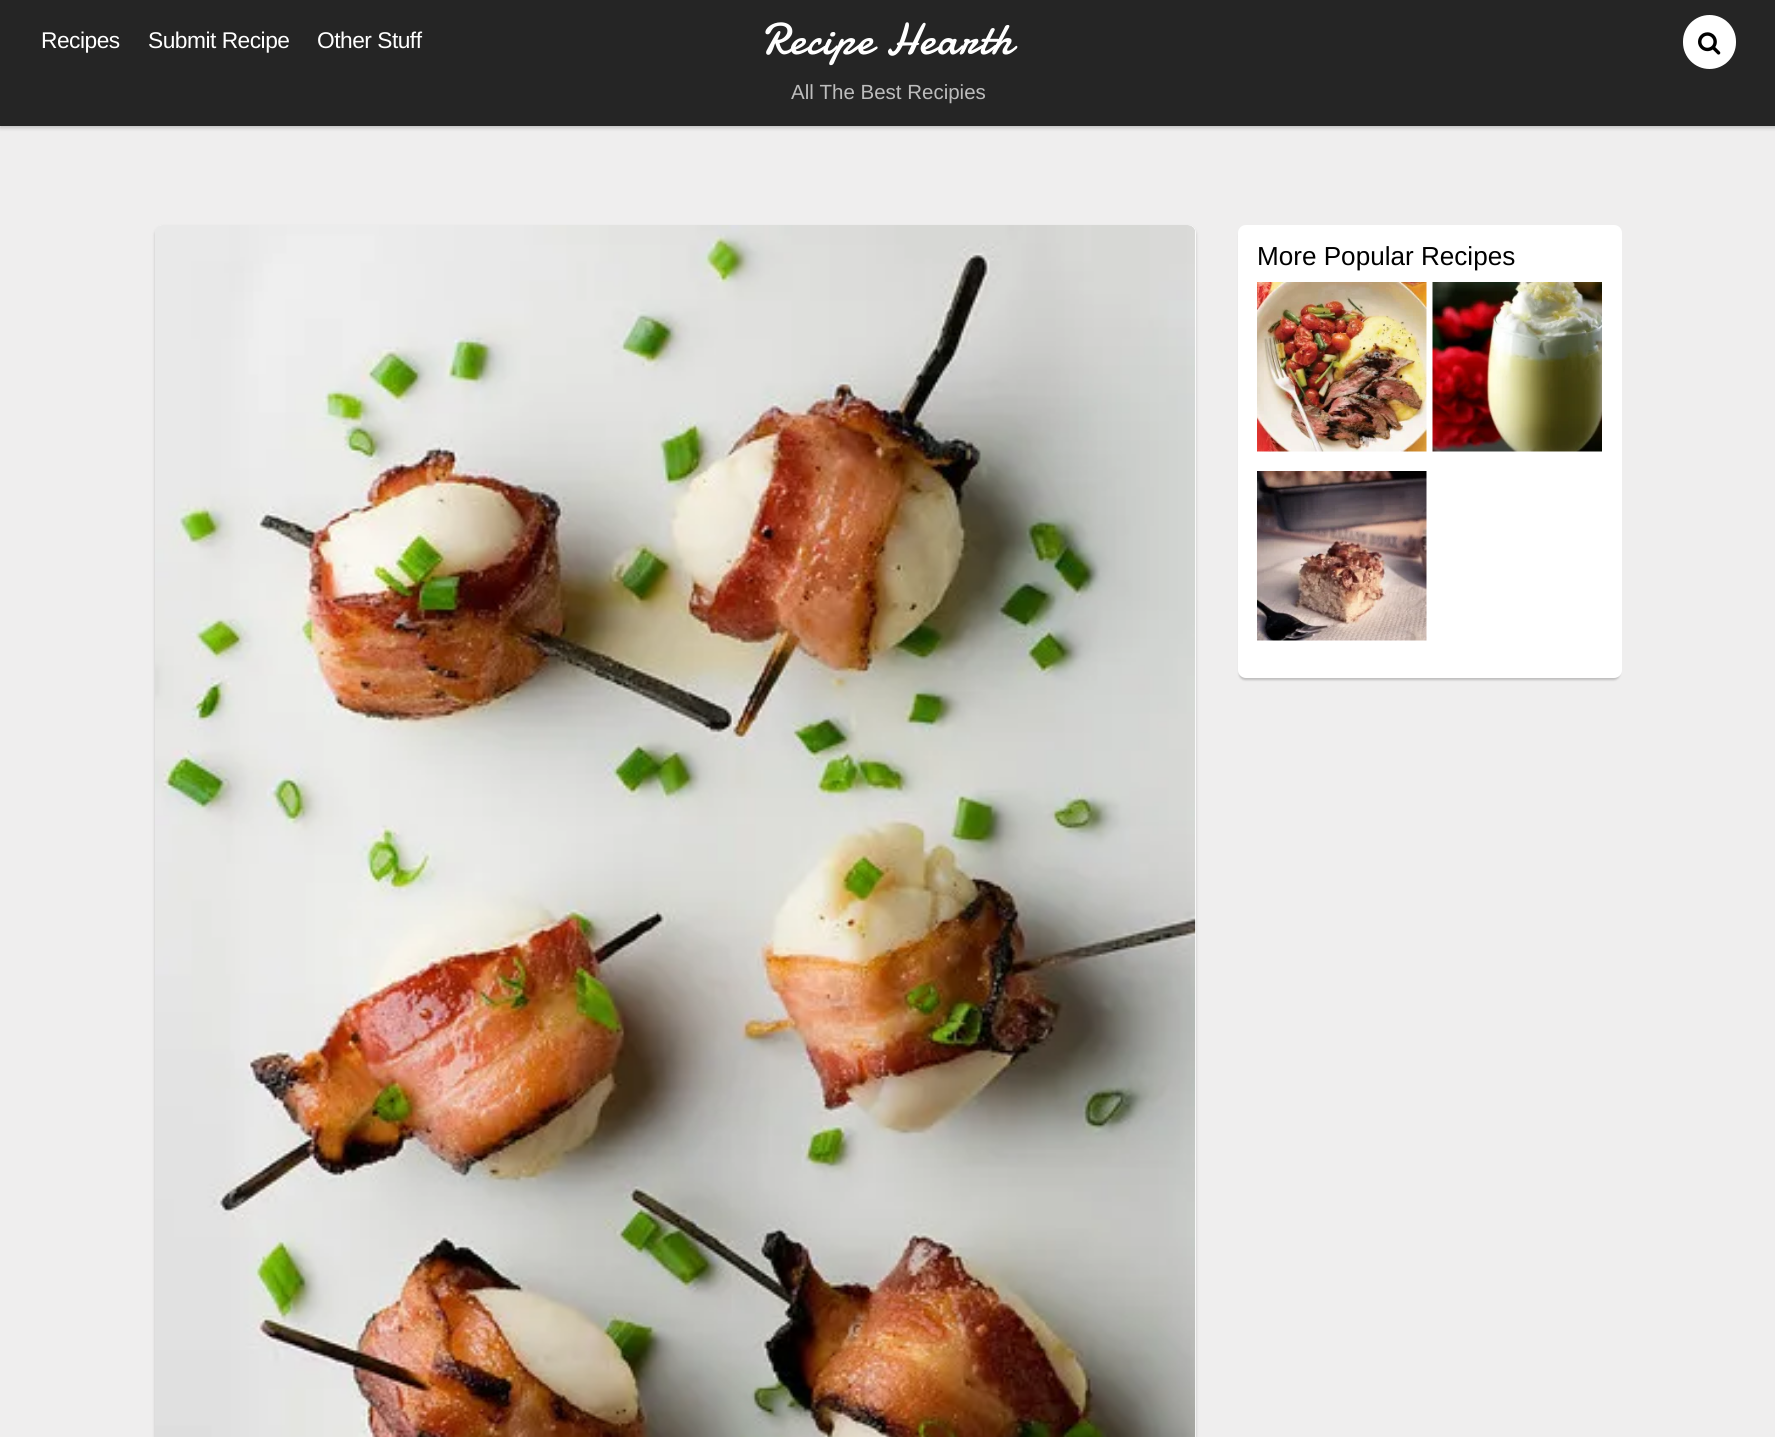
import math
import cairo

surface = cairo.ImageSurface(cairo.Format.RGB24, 1775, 1437)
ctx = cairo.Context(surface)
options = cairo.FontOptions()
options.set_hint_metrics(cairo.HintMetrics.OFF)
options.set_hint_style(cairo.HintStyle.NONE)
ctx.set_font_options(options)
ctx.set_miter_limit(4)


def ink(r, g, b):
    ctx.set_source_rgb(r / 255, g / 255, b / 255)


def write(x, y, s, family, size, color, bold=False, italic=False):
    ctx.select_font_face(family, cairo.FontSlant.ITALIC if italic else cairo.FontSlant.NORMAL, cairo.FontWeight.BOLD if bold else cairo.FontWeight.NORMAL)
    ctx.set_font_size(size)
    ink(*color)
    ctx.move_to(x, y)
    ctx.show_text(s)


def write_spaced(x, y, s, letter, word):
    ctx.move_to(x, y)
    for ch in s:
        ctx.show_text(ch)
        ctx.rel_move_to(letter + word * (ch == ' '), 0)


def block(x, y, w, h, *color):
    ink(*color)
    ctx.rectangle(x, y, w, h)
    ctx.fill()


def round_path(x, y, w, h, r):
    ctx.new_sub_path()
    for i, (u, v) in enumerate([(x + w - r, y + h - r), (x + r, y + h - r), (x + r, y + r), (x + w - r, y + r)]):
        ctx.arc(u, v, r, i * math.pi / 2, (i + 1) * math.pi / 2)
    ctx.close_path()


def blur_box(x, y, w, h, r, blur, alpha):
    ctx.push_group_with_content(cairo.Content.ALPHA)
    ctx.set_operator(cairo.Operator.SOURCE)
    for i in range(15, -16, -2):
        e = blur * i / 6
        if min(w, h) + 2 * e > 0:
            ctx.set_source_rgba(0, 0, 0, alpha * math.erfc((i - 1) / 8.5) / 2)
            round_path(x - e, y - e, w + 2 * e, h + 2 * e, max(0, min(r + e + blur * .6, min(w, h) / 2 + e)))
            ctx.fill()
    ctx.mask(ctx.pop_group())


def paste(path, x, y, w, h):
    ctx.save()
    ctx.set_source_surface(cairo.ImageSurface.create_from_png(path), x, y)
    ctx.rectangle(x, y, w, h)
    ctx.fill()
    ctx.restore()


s1 = dict(family="Liberation Sans", size=20.5, color=(189, 189, 189))
s2 = dict(family="Liberation Sans", size=26.1, color=(0, 0, 0))

ink(239, 238, 238)
ctx.paint()
ink(0, 0, 0)
blur_box(0, 2, 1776, 126, 0, 2, 0.2)
block(0, 0, 1775, 126, 37, 37, 37)
ctx.select_font_face("Liberation Sans")
ctx.set_font_size(22.75)
ink(255, 255, 255)
write_spaced(41, 48, "Recipes", -0.5, 0)
write_spaced(148, 48, "Submit Recipe", -0.5, 0)
write_spaced(317, 48, "Other Stuff", -0.5, 0)
ctx.select_font_face("Damion")
ctx.set_font_size(45)
write_spaced(762, 54, "Recipe Hearth", 1.4, 0)
write(791, 99, "All The Best Recipies", **s1)
ink(255, 255, 255)
round_path(1683, 15, 53, 54, 26.5)
ctx.fill()
paste("pic1.png", 1698, 32, 23, 23)
ink(0, 0, 0)
blur_box(155, 227, 1041, 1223, 8, 1.5, 0.2)
ink(255, 255, 255)
round_path(155, 225, 1041, 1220, 8)
ctx.fill()
paste("pic2.png", 155, 225, 1041, 1212)
ink(0, 0, 0)
blur_box(1239, 230, 381, 450, 6, 1, 0.2)
ink(255, 255, 255)
round_path(1238, 225, 384, 453, 8)
ctx.fill()
write(1257, 265, "More Popular Recipes", **s2)
paste("pic3.png", 1257, 282, 170, 170)
paste("pic4.png", 1432, 282, 170, 170)
paste("pic5.png", 1257, 471, 170, 170)
surface.write_to_png("screenshot.png")
